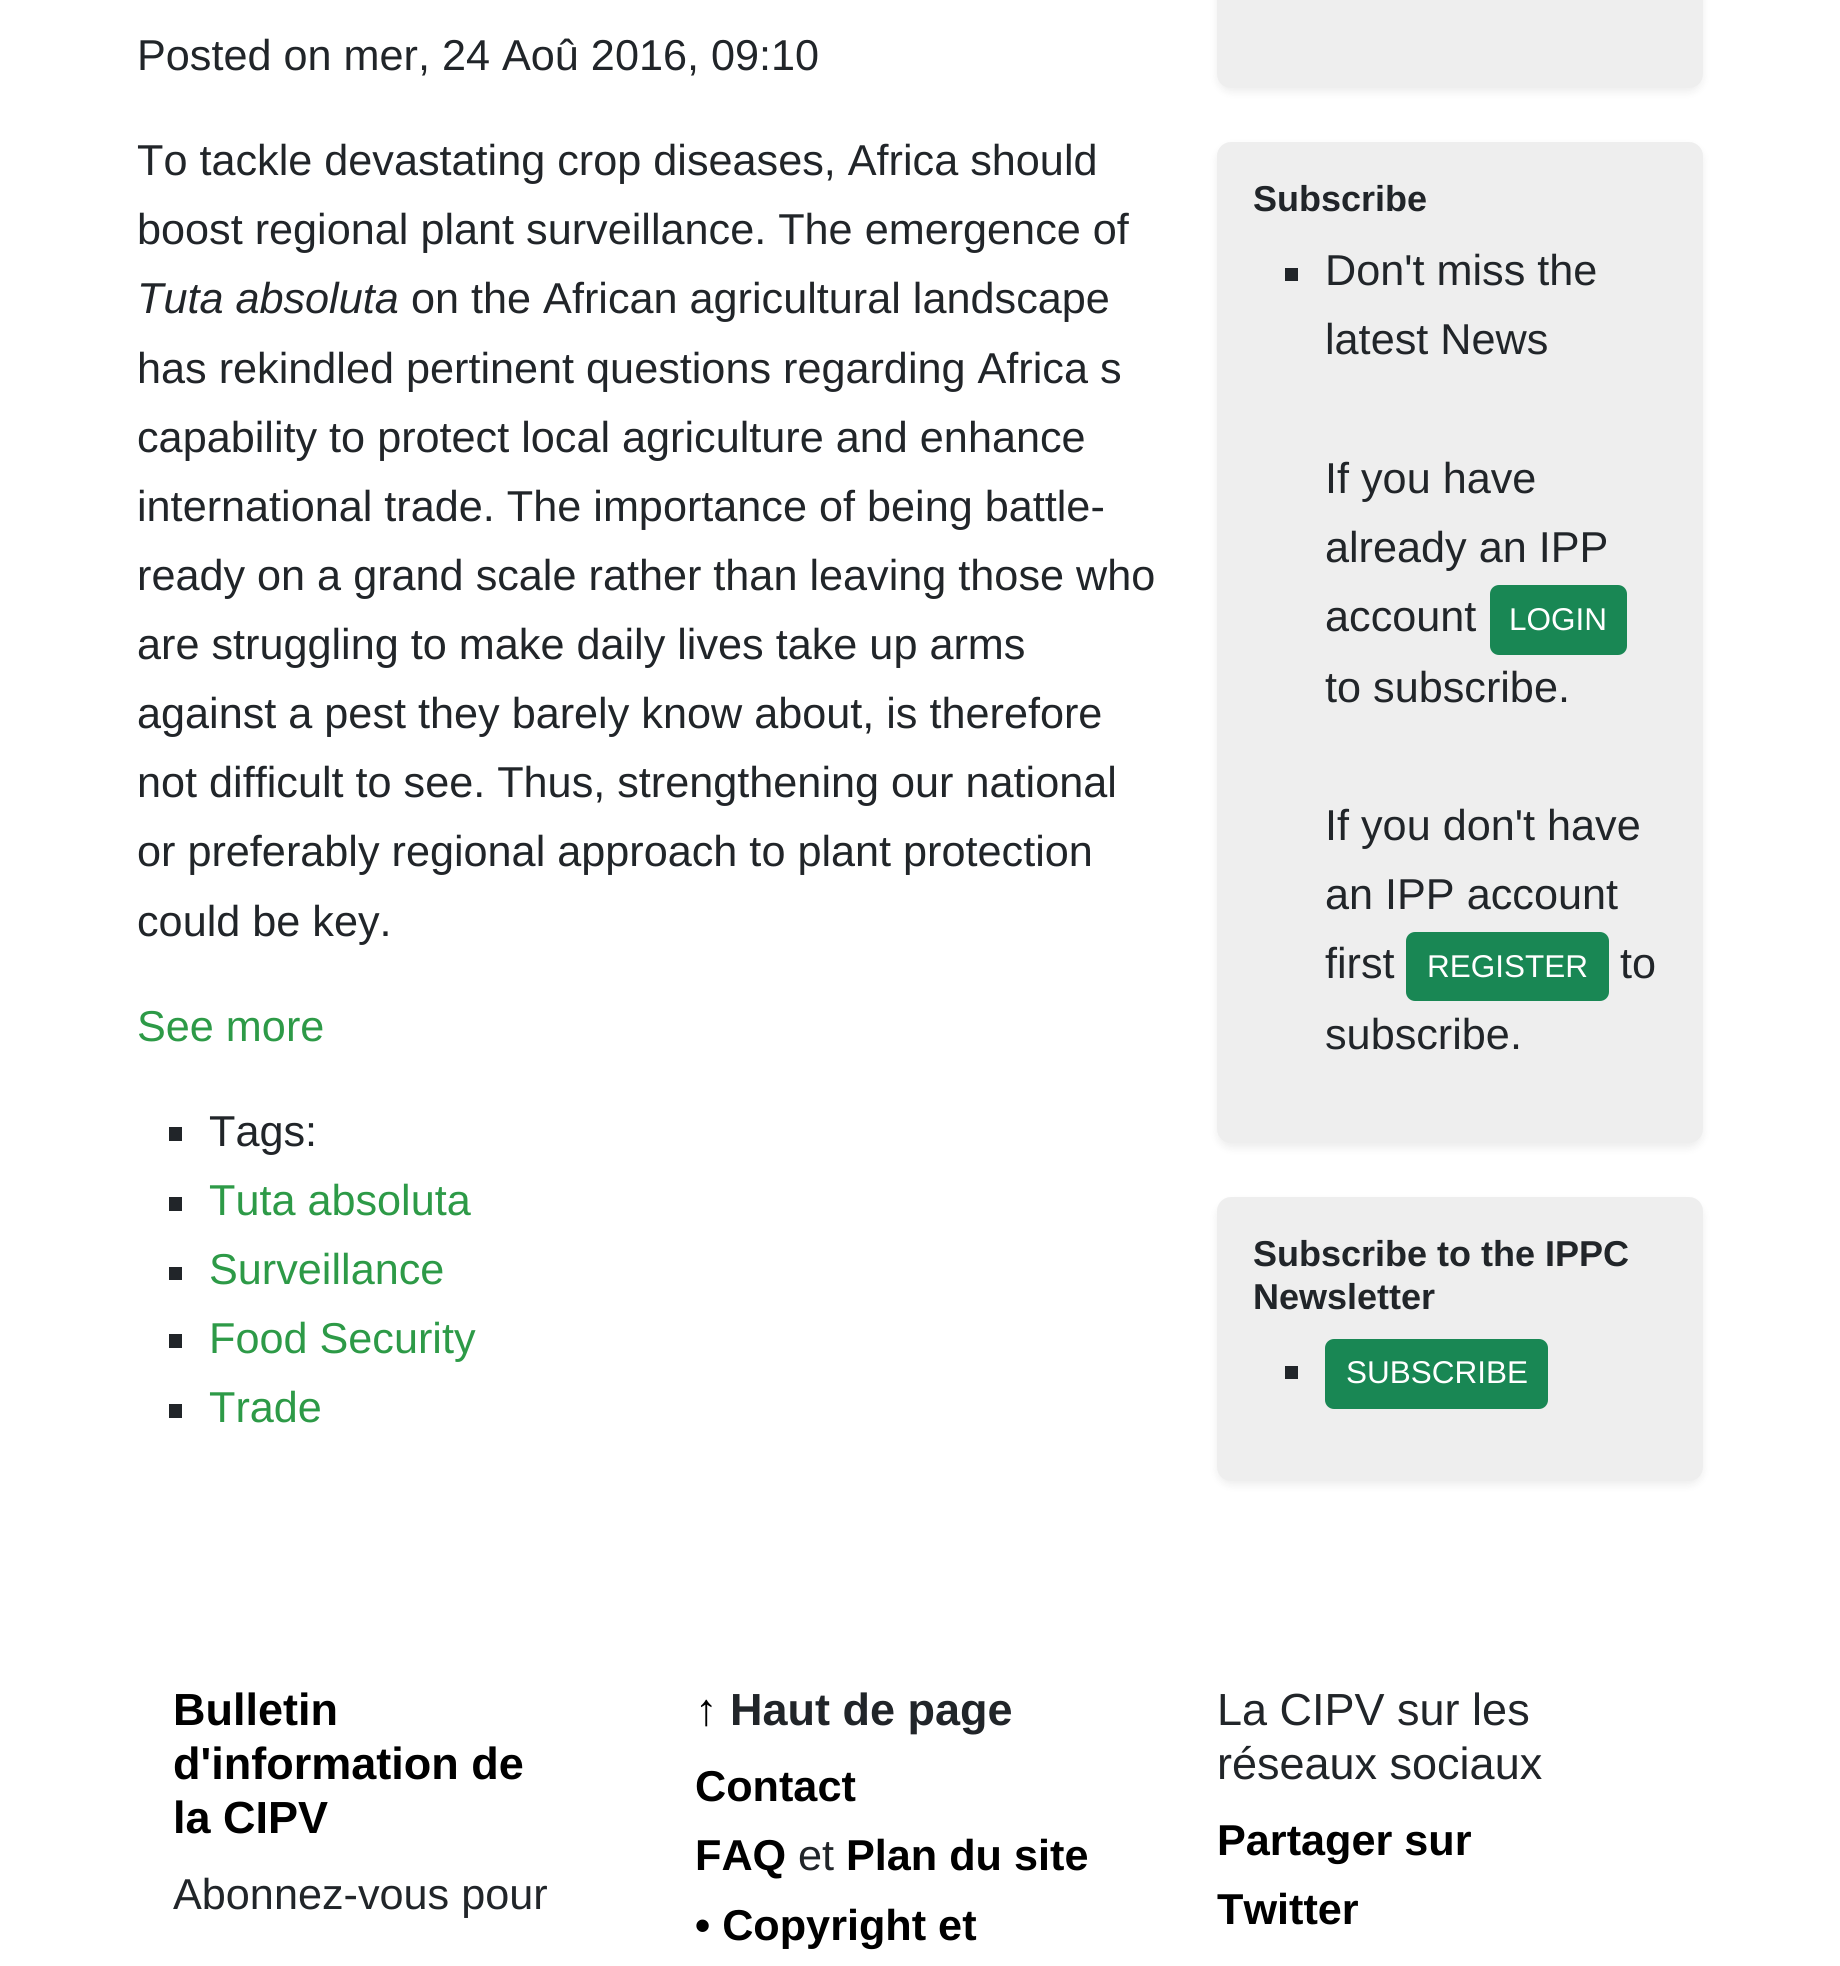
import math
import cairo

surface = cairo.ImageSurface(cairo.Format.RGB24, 1840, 1966)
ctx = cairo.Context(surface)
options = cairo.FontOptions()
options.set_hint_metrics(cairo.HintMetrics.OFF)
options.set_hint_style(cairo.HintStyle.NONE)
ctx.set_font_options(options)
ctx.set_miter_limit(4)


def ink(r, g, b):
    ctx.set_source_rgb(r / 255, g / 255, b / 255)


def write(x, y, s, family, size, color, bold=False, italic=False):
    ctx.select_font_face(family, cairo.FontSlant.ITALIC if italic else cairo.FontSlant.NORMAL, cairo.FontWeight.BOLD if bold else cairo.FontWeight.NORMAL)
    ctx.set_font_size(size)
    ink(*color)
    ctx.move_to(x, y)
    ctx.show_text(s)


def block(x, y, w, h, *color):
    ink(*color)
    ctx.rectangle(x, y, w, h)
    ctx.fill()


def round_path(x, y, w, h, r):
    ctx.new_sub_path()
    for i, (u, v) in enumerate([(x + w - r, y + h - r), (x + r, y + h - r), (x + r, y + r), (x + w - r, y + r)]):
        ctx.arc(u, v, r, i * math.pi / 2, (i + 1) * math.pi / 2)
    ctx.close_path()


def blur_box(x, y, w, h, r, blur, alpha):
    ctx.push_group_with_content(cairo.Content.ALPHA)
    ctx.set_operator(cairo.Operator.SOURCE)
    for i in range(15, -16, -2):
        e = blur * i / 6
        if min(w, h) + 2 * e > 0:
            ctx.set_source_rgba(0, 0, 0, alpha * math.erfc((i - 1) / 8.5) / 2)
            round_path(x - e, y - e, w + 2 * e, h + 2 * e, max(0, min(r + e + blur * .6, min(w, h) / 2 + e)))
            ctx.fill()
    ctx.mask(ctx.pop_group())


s1 = dict(family="Liberation Sans", size=43.2, color=(33, 37, 41))
s2 = dict(family="Liberation Sans", size=43.2, color=(33, 37, 41), italic=True)
s3 = dict(family="Liberation Sans", size=43.2, color=(45, 154, 71))
s4 = dict(family="Liberation Sans", size=36, color=(33, 37, 41), bold=True)
s5 = dict(family="Liberation Sans", size=31.5, color=(255, 255, 255))
s6 = dict(family="Liberation Sans", size=45, color=(0, 0, 0), bold=True)
s7 = dict(family="Liberation Sans", size=45, color=(33, 37, 41), bold=True)
s8 = dict(family="Liberation Sans", size=43.2, color=(0, 0, 0), bold=True)
s9 = dict(family="Liberation Sans", size=45, color=(33, 37, 41))

ink(255, 255, 255)
ctx.paint()
write(137, 70, "Posted on mer, 24 Aoû 2016, 09:10", **s1)
write(137, 175, "To tackle devastating crop diseases, Africa should", **s1)
write(137, 244, "boost regional plant surveillance. The emergence of", **s1)
write(137, 313, "Tuta absoluta", **s2)
write(411, 313, "on the African agricultural landscape", **s1)
write(137, 383, "has rekindled pertinent questions regarding Africa s", **s1)
write(137, 452, "capability to protect local agriculture and enhance", **s1)
write(137, 521, "international trade. The importance of being battle-", **s1)
write(137, 590, "ready on a grand scale rather than leaving those who", **s1)
write(137, 659, "are struggling to make daily lives take up arms", **s1)
write(137, 728, "against a pest they barely know about, is therefore", **s1)
write(137, 797, "not difficult to see. Thus, strengthening our national", **s1)
write(137, 866, "or preferably regional approach to plant protection", **s1)
write(137, 936, "could be key.", **s1)
write(137, 1041, "See more", **s3)
block(169, 1127, 13, 14, 33, 37, 41)
write(209, 1146, "Tags:", **s1)
block(169, 1197, 13, 14, 33, 37, 41)
write(209, 1215, "Tuta absoluta", **s3)
block(169, 1267, 13, 13, 33, 37, 41)
write(209, 1284, "Surveillance", **s3)
block(169, 1334, 13, 14, 33, 37, 41)
write(209, 1353, "Food Security", **s3)
block(169, 1404, 13, 14, 33, 37, 41)
write(209, 1422, "Trade", **s3)
ink(0, 0, 0)
blur_box(1217, -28, 486, 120, 14, 4.5, 0.07)
ink(238, 238, 238)
round_path(1217, -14, 486, 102, 14)
ctx.fill()
ink(0, 0, 0)
blur_box(1217, 146, 486, 1002, 14, 4.5, 0.07)
ink(238, 238, 238)
round_path(1217, 142, 486, 1001, 14)
ctx.fill()
write(1253, 211, "Subscribe", **s4)
block(1285, 268, 13, 13, 33, 37, 41)
write(1325, 285, "Don't miss the", **s1)
write(1325, 354, "latest News", **s1)
write(1325, 493, "If you have", **s1)
write(1325, 562, "already an IPP", **s1)
write(1325, 631, "account", **s1)
ink(25, 135, 84)
round_path(1491, 586, 135, 68, 8)
ctx.fill_preserve()
ctx.stroke()
write(1509, 630, "LOGIN", **s5)
write(1325, 702, "to subscribe.", **s1)
write(1325, 840, "If you don't have", **s1)
write(1325, 909, "an IPP account", **s1)
write(1325, 978, "first", **s1)
ink(25, 135, 84)
round_path(1407, 933, 201, 67, 8)
ctx.fill_preserve()
ctx.stroke()
write(1427, 977, "REGISTER", **s5)
write(1620, 978, "to", **s1)
write(1325, 1049, "subscribe.", **s1)
ink(0, 0, 0)
blur_box(1217, 1202, 486, 283, 14, 4.5, 0.07)
ink(238, 238, 238)
round_path(1217, 1197, 486, 284, 14)
ctx.fill()
write(1253, 1266, "Subscribe to the IPPC", **s4)
write(1253, 1309, "Newsletter", **s4)
block(1285, 1366, 13, 13, 33, 37, 41)
ink(25, 135, 84)
round_path(1326, 1340, 221, 68, 8)
ctx.fill_preserve()
ctx.stroke()
write(1346, 1383, "SUBSCRIBE", **s5)
write(173, 1725, "Bulletin", **s6)
write(173, 1779, "d'information de", **s6)
write(173, 1833, "la CIPV", **s6)
write(173, 1909, "Abonnez-vous pour", **s1)
write(695, 1725, "↑", **s6)
write(730, 1725, "Haut de page", **s7)
write(695, 1801, "Contact", **s8)
write(695, 1870, "FAQ", **s8)
write(798, 1870, "et", **s1)
write(846, 1870, "Plan du site", **s8)
write(695, 1940, "• Copyright et", **s8)
write(1217, 1725, "La CIPV sur les", **s9)
write(1217, 1779, "réseaux sociaux", **s9)
write(1217, 1855, "Partager sur", **s8)
write(1217, 1924, "Twitter", **s8)
surface.write_to_png("screenshot.png")
